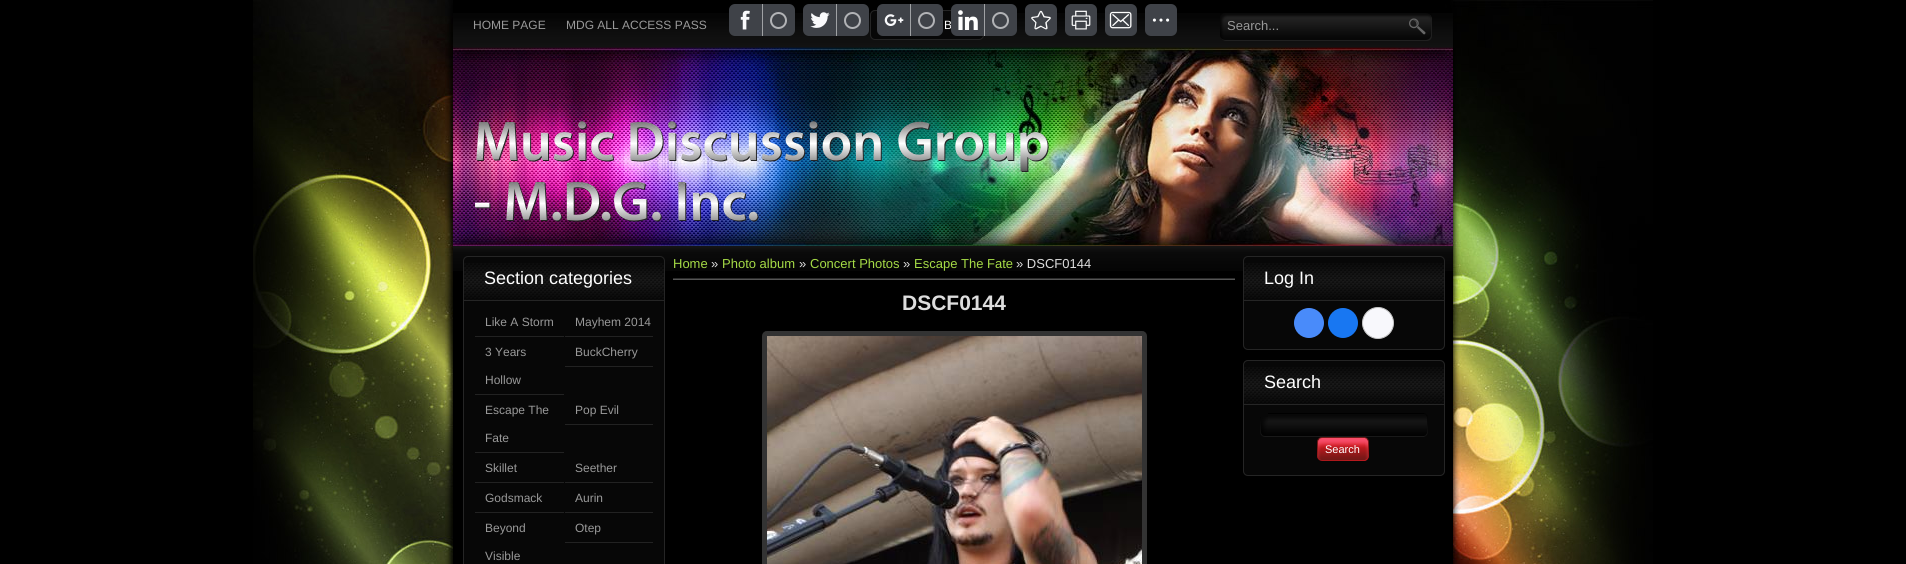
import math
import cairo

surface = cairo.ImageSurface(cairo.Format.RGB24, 1906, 564)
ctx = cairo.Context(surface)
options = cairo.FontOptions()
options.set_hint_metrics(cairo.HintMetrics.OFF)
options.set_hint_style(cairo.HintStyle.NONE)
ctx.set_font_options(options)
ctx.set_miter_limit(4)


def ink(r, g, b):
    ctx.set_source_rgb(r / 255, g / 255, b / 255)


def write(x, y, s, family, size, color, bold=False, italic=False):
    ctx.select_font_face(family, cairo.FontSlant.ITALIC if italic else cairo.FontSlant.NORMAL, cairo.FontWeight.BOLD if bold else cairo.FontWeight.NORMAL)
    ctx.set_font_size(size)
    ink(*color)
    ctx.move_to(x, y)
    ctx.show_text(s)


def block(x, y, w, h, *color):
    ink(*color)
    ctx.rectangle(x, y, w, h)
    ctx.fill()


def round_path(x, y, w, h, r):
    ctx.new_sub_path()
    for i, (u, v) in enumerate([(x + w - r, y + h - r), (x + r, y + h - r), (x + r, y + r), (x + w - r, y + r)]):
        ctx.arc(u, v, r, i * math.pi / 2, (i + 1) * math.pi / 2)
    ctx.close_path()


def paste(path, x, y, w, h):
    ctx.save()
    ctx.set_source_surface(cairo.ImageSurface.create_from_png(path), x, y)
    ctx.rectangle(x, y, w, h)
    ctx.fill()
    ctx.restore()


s1 = dict(family="Liberation Sans", size=12, color=(255, 255, 255))
s2 = dict(family="Liberation Sans", size=12, color=(153, 153, 153))
s3 = dict(family="Liberation Sans", size=13, color=(153, 153, 153))
s4 = dict(family="Liberation Sans", size=18, color=(255, 255, 255))
s5 = dict(family="Liberation Sans", size=13, color=(165, 219, 70))
s6 = dict(family="Liberation Sans", size=13, color=(221, 221, 221))
s7 = dict(family="Liberation Sans", size=21, color=(221, 221, 221), bold=True)
s8 = dict(family="Liberation Sans", size=11, color=(255, 255, 255))

ink(0, 0, 0)
ctx.paint()
paste("pic9.png", 253, 0, 1400, 564)
paste("pic10.png", 453, 13, 1000, 233)
ink(63, 66, 72)
round_path(729, 4, 66, 32, 6)
ctx.fill()
paste("pic1.png", 740, 10, 10, 20)
block(762, 4, 1, 32, 159, 161, 164)
ctx.arc(778.5, 20.5, 7.5, 0, 2 * math.pi)
ink(178, 179, 182)
ctx.stroke()
ink(63, 66, 72)
round_path(803, 4, 66, 32, 6)
ctx.fill()
paste("pic2.png", 810, 12, 20, 16)
block(836, 4, 1, 32, 159, 161, 164)
ctx.arc(852.5, 20.5, 7.5, 0, 2 * math.pi)
ink(178, 179, 182)
ctx.stroke()
ink(7, 7, 7)
round_path(870.5, 10.5, 113, 29, 4.5)
ctx.fill_preserve()
ink(37, 37, 37)
ctx.set_line_width(1)
ctx.stroke()
ink(63, 66, 72)
round_path(877, 4, 66, 32, 6)
ctx.fill()
paste("pic3.png", 884, 14, 20, 12)
block(910, 4, 1, 32, 159, 161, 164)
ctx.arc(926.5, 20.5, 7.5, 0, 2 * math.pi)
ink(178, 179, 182)
ctx.set_line_width(2)
ctx.stroke()
write(944, 29, "B", **s1)
ink(63, 66, 72)
round_path(951, 4, 66, 32, 6)
ctx.fill()
paste("pic4.png", 958, 10, 20, 20)
block(984, 4, 1, 32, 159, 161, 164)
ctx.arc(1000.5, 20.5, 7.5, 0, 2 * math.pi)
ink(178, 179, 182)
ctx.stroke()
ink(63, 66, 72)
round_path(1025, 4, 32, 32, 6)
ctx.fill()
paste("pic5.png", 1031, 10, 20, 20)
round_path(1065, 4, 32, 32, 6)
ctx.fill()
paste("pic6.png", 1071, 10, 20, 20)
round_path(1105, 4, 32, 32, 6)
ctx.fill()
paste("pic7.png", 1109, 11, 23, 18)
round_path(1145, 4, 32, 32, 6)
ctx.fill()
paste("pic8.png", 1152, 18, 18, 4)
write(473, 29, "HOME PAGE", **s2)
write(566, 29, "MDG ALL ACCESS PASS", **s2)
paste("pic11.png", 1220, 13, 212, 28)
write(1227, 30, "Search...", **s3)
paste("pic12.png", 476, 121, 139, 41)
paste("pic13.png", 630, 121, 252, 41)
paste("pic14.png", 898, 121, 151, 51)
paste("pic15.png", 475, 202, 16, 7)
paste("pic16.png", 506, 181, 156, 41)
paste("pic17.png", 678, 182, 81, 40)
block(1445, 271, 8, 293, 0, 0, 0)
paste("pic18.png", 453, 246, 1000, 25)
ink(7, 7, 7)
round_path(463, 256, 202, 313, 5)
ctx.fill()
paste("pic19.png", 464, 263, 200, 38)
round_path(463.5, 256.5, 201, 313, 4.5)
ink(37, 37, 37)
ctx.set_line_width(1)
ctx.stroke()
write(484, 284, "Section categories", **s4)
block(475, 336, 89, 1, 34, 34, 34)
write(485, 326, "Like A Storm", **s2)
block(565, 336, 88, 1, 34, 34, 34)
write(575, 326, "Mayhem 2014", **s2)
block(475, 394, 89, 1, 34, 34, 34)
write(485, 356, "3 Years", **s2)
write(485, 384, "Hollow", **s2)
block(565, 366, 88, 1, 34, 34, 34)
write(575, 356, "BuckCherry", **s2)
block(475, 452, 89, 1, 34, 34, 34)
write(485, 414, "Escape The", **s2)
write(485, 442, "Fate", **s2)
block(565, 424, 88, 1, 34, 34, 34)
write(575, 414, "Pop Evil", **s2)
block(475, 482, 89, 1, 34, 34, 34)
write(485, 472, "Skillet", **s2)
block(565, 482, 88, 1, 34, 34, 34)
write(575, 472, "Seether", **s2)
block(475, 512, 89, 1, 34, 34, 34)
write(485, 502, "Godsmack", **s2)
block(565, 512, 88, 1, 34, 34, 34)
write(575, 502, "Aurin", **s2)
write(485, 532, "Beyond", **s2)
write(485, 560, "Visible", **s2)
block(565, 542, 88, 1, 34, 34, 34)
write(575, 532, "Otep", **s2)
write(673, 268, "Home", **s5)
write(711, 268, "»", **s6)
write(722, 268, "Photo album", **s5)
write(799, 268, "»", **s6)
write(810, 268, "Concert Photos", **s5)
write(903, 268, "»", **s6)
write(914, 268, "Escape The Fate", **s5)
write(1016, 268, "» DSCF0144", **s6)
block(673, 278, 562, 1, 44, 44, 44)
block(673, 279, 562, 1, 85, 85, 85)
write(902, 310, "DSCF0144", **s7)
paste("pic20.png", 762, 331, 385, 233)
paste("pic21.png", 767, 336, 375, 228)
ink(7, 7, 7)
round_path(1243, 256, 202, 94, 5)
ctx.fill()
paste("pic19.png", 1244, 263, 200, 38)
round_path(1243.5, 256.5, 201, 93, 4.5)
ink(37, 37, 37)
ctx.stroke()
write(1264, 284, "Log In", **s4)
ink(73, 139, 250)
ctx.new_path()
ctx.arc(1309, 323, 15, 0, 2 * math.pi)
ctx.fill()
ink(24, 119, 242)
ctx.arc(1343, 323, 15, 0, 2 * math.pi)
ctx.fill()
ink(248, 248, 252)
ctx.arc(1378, 323, 15.5, 0, 2 * math.pi)
ctx.fill_preserve()
ink(196, 196, 196)
ctx.stroke()
ink(7, 7, 7)
round_path(1243, 360, 202, 116, 5)
ctx.fill()
paste("pic19.png", 1244, 367, 200, 38)
round_path(1243.5, 360.5, 201, 115, 4.5)
ink(37, 37, 37)
ctx.stroke()
write(1264, 388, "Search", **s4)
paste("pic22.png", 1424, 413, 4, 24)
paste("pic23.png", 1260, 417, 8, 20)
block(1268, 413, 156, 1, 0, 0, 0)
paste("pic24.png", 1268, 414, 156, 23)
paste("pic25.png", 1365, 437, 4, 24)
paste("pic26.png", 1317, 437, 48, 24)
write(1325, 453, "Search", **s8)
surface.write_to_png("screenshot.png")
